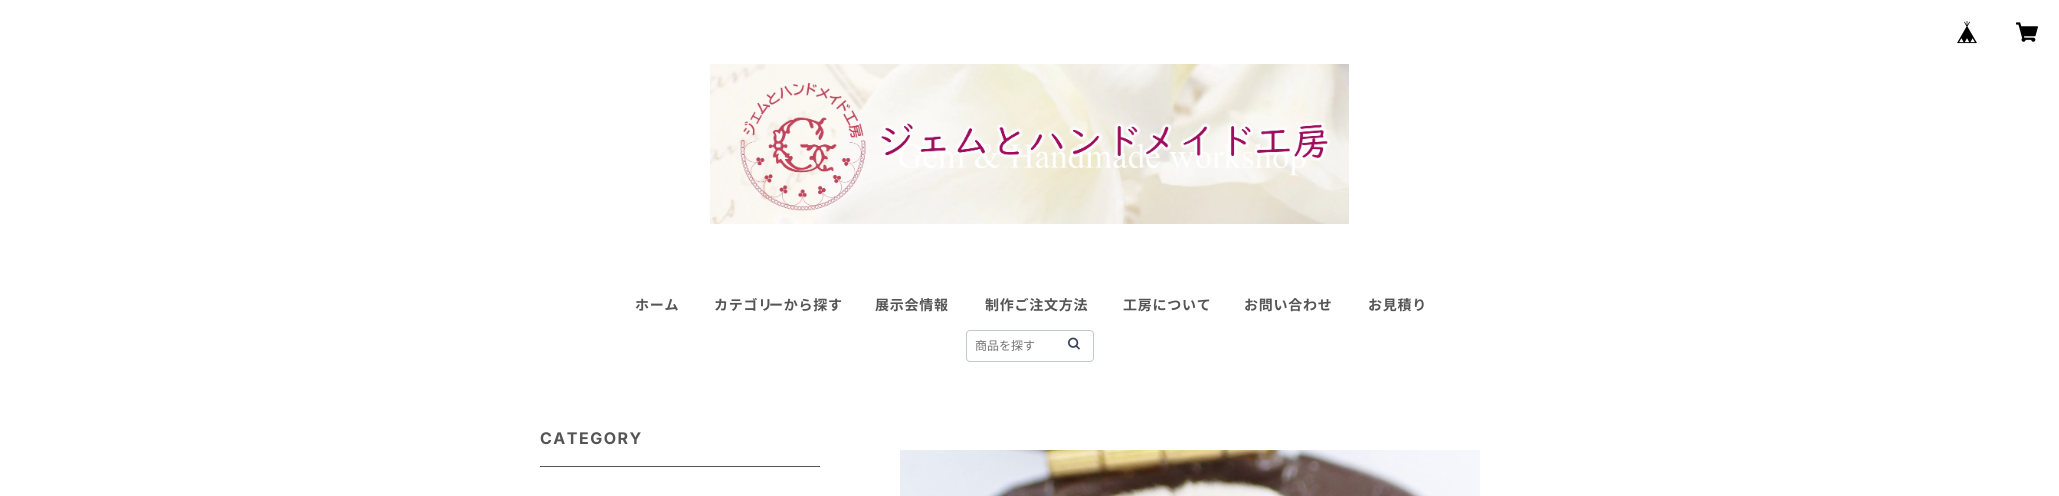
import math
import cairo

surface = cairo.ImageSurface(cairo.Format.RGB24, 2059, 496)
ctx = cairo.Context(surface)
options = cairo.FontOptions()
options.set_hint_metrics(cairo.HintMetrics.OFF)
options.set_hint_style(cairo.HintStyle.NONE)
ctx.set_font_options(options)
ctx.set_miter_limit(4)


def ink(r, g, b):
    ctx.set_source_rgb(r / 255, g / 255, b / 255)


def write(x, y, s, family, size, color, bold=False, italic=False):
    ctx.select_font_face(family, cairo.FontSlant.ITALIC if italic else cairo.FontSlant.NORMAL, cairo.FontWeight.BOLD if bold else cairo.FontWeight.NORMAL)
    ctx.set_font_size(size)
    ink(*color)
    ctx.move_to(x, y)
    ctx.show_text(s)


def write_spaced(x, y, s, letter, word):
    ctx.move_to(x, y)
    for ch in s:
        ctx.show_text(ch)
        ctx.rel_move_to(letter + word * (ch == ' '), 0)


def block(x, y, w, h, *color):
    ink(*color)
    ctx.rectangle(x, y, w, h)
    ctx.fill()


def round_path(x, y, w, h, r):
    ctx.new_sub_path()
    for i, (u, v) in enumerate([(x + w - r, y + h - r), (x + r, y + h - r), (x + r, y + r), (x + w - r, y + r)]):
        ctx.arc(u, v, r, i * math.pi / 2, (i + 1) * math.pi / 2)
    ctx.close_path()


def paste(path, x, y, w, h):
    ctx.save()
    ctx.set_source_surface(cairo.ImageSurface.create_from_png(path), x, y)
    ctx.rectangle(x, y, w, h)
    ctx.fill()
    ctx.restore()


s1 = dict(family="Noto Sans JP", size=12, color=(117, 117, 117))

ink(255, 255, 255)
ctx.paint()
paste("pic1.png", 1957, 21, 20, 23)
paste("pic2.png", 2016, 22, 22, 20)
paste("pic3.png", 710, 64, 639, 160)
ctx.select_font_face("Noto Sans JP", cairo.FontSlant.NORMAL, cairo.FontWeight.BOLD)
ctx.set_font_size(14)
ink(85, 85, 85)
write_spaced(635, 310, "ホーム", 0.75, 0)
write_spaced(714, 310, "カテゴリ", 0.75, 0)
write_spaced(769, 310, "ーから探す", 0.75, 0)
write_spaced(875, 310, "展示会情報", 0.75, 0)
write_spaced(985, 310, "制作ご注文方法", 0.75, 0)
write_spaced(1123, 310, "工房について", 0.75, 0)
write_spaced(1244, 310, "お問い合わせ", 0.75, 0)
write_spaced(1368, 310, "お見積り", 0.75, 0)
round_path(966.5, 330.5, 127, 31, 3.5)
ink(194, 200, 210)
ctx.set_line_width(1)
ctx.stroke()
write(975, 350, "商品を探す", **s1)
paste("pic4.png", 1068, 337, 12, 13)
ctx.select_font_face("Inter", cairo.FontSlant.NORMAL, cairo.FontWeight.BOLD)
ctx.set_font_size(16)
ink(85, 85, 85)
write_spaced(540, 444, "CATEGORY", 1.5, 0)
block(540, 466, 280, 1, 85, 85, 85)
paste("pic5.png", 900, 450, 580, 46)
surface.write_to_png("screenshot.png")
